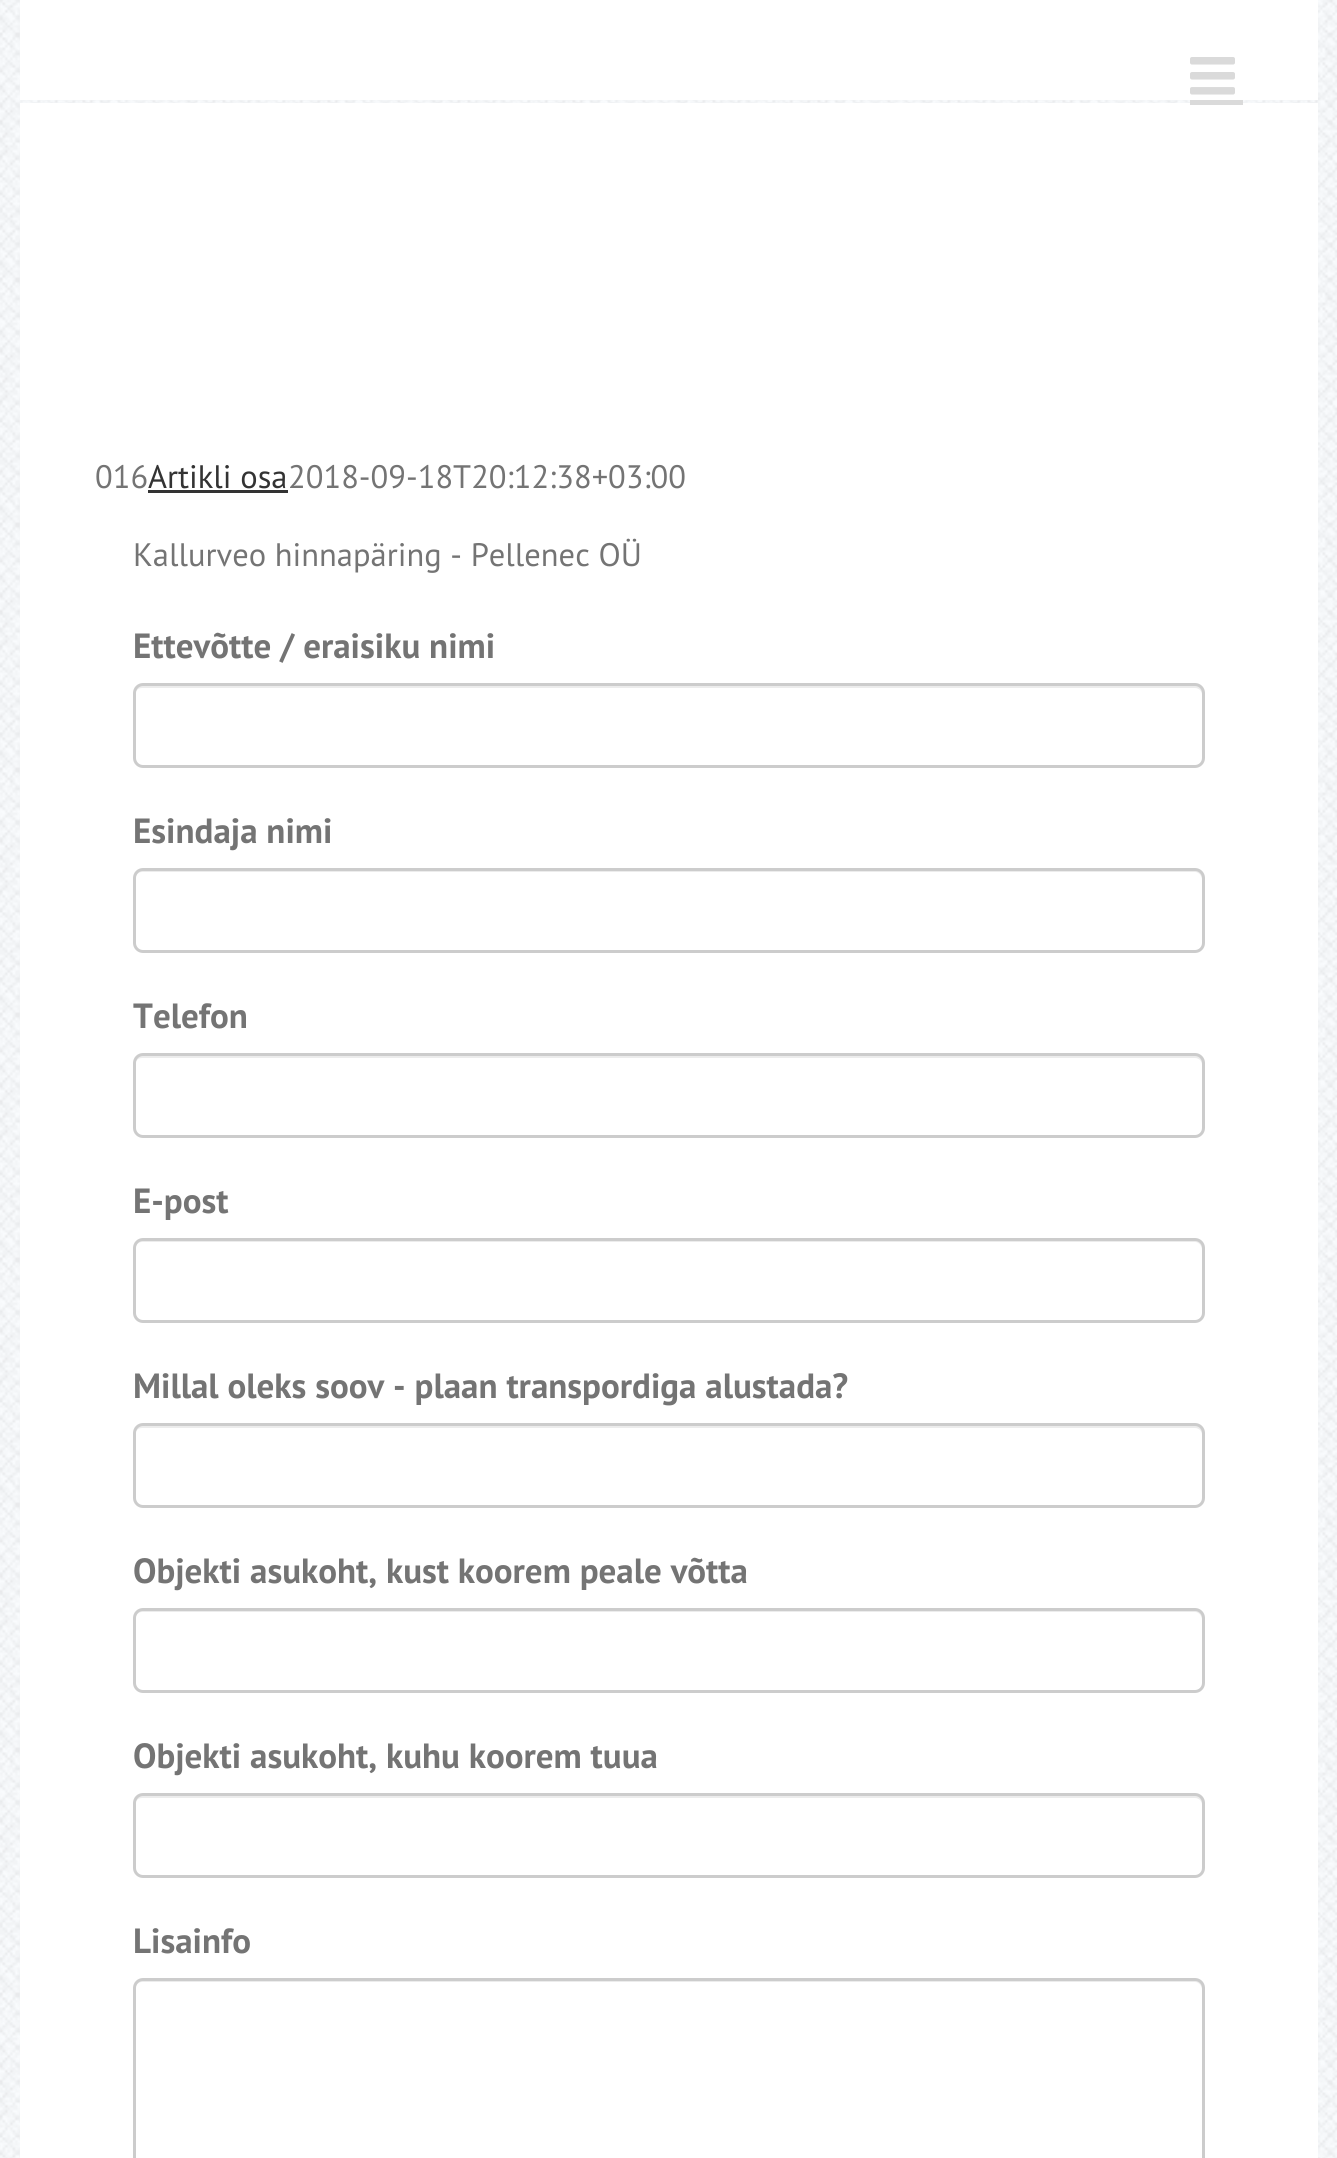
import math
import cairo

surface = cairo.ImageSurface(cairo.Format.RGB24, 1337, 2158)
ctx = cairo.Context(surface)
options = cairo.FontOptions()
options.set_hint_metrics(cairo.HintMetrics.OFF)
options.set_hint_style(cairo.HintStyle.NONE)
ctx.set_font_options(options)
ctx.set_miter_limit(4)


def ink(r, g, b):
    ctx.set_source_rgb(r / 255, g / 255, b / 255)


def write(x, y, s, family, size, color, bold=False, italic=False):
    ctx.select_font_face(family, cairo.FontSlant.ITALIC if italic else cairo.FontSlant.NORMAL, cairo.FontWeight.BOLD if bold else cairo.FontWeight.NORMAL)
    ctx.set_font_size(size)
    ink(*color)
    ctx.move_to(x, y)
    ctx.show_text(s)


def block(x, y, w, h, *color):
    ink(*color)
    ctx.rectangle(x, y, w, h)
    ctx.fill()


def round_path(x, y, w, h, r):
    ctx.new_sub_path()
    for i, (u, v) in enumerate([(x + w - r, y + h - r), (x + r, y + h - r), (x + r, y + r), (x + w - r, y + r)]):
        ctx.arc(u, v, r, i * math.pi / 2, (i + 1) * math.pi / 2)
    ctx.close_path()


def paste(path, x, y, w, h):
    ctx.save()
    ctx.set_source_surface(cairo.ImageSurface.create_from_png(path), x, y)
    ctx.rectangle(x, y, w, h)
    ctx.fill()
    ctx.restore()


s1 = dict(family="PT Sans", size=32.5, color=(116, 116, 116))
s2 = dict(family="PT Sans", size=32.5, color=(51, 51, 51))
s3 = dict(family="PT Sans", size=35, color=(116, 116, 116), bold=True)

ink(255, 255, 255)
ctx.paint()
paste("pic1.png", 0, 0, 1337, 2158)
paste("pic2.png", 20, 100, 1298, 3)
block(20, 0, 1298, 100, 255, 255, 255)
paste("pic3.png", 1190, 57, 45, 38)
block(20, 103, 1298, 2055, 255, 255, 255)
block(1190, 100, 53, 5, 218, 218, 218)
write(95, 488, "016", **s1)
write(148, 488, "Artikli osa", **s2)
block(148, 490, 140, 3, 51, 51, 51)
write(288, 488, "2018-09-18T20:12:38+03:00", **s1)
write(133, 566, "Kallurveo hinnapäring - Pellenec OÜ", **s1)
write(133, 658, "Ettevõtte / eraisiku nimi", **s3)
ink(236, 236, 236)
ctx.new_path()
ctx.move_to(142, 688)
ctx.line_to(1195, 688)
ctx.curve_to(1199, 688, 1202, 691, 1202, 695)
ctx.line_to(1202, 761)
ctx.curve_to(1203, 760, 1203, 758, 1203, 757)
ctx.line_to(1203, 693)
ctx.curve_to(1203, 689, 1199, 685, 1195, 685)
ctx.line_to(143, 685)
ctx.curve_to(139, 685, 135, 689, 135, 693)
ctx.line_to(135, 695)
ctx.curve_to(135, 691, 138, 688, 142, 688)
ctx.close_path()
ctx.fill()
round_path(134.5, 684.5, 1069, 82, 8.5)
ink(204, 204, 204)
ctx.set_line_width(3)
ctx.stroke()
write(133, 843, "Esindaja nimi", **s3)
ink(236, 236, 236)
ctx.new_path()
ctx.move_to(142, 872)
ctx.line_to(1195, 872)
ctx.curve_to(1199, 872, 1202, 876, 1202, 880)
ctx.line_to(1202, 946)
ctx.curve_to(1203, 945, 1203, 943, 1203, 942)
ctx.line_to(1203, 878)
ctx.curve_to(1203, 874, 1199, 870, 1195, 870)
ctx.line_to(143, 870)
ctx.curve_to(139, 870, 135, 874, 135, 878)
ctx.line_to(135, 880)
ctx.curve_to(135, 876, 138, 872, 142, 872)
ctx.close_path()
ctx.fill()
round_path(134.5, 869.5, 1069, 82, 8.5)
ink(204, 204, 204)
ctx.stroke()
write(133, 1028, "Telefon", **s3)
ink(236, 236, 236)
ctx.new_path()
ctx.move_to(142, 1058)
ctx.line_to(1195, 1058)
ctx.curve_to(1199, 1058, 1202, 1061, 1202, 1065)
ctx.line_to(1202, 1131)
ctx.curve_to(1203, 1130, 1203, 1128, 1203, 1127)
ctx.line_to(1203, 1063)
ctx.curve_to(1203, 1059, 1199, 1055, 1195, 1055)
ctx.line_to(143, 1055)
ctx.curve_to(139, 1055, 135, 1059, 135, 1063)
ctx.line_to(135, 1065)
ctx.curve_to(135, 1061, 138, 1058, 142, 1058)
ctx.close_path()
ctx.fill()
round_path(134.5, 1054.5, 1069, 82, 8.5)
ink(204, 204, 204)
ctx.stroke()
write(133, 1213, "E-post", **s3)
ink(236, 236, 236)
ctx.new_path()
ctx.move_to(142, 1242)
ctx.line_to(1195, 1242)
ctx.curve_to(1199, 1242, 1202, 1246, 1202, 1250)
ctx.line_to(1202, 1316)
ctx.curve_to(1203, 1315, 1203, 1313, 1203, 1312)
ctx.line_to(1203, 1248)
ctx.curve_to(1203, 1244, 1199, 1240, 1195, 1240)
ctx.line_to(143, 1240)
ctx.curve_to(139, 1240, 135, 1244, 135, 1248)
ctx.line_to(135, 1250)
ctx.curve_to(135, 1246, 138, 1242, 142, 1242)
ctx.close_path()
ctx.fill()
round_path(134.5, 1239.5, 1069, 82, 8.5)
ink(204, 204, 204)
ctx.stroke()
write(133, 1398, "Millal oleks soov - plaan transpordiga alustada?", **s3)
ink(236, 236, 236)
ctx.new_path()
ctx.move_to(142, 1428)
ctx.line_to(1195, 1428)
ctx.curve_to(1199, 1428, 1202, 1431, 1202, 1435)
ctx.line_to(1202, 1501)
ctx.curve_to(1203, 1500, 1203, 1498, 1203, 1497)
ctx.line_to(1203, 1433)
ctx.curve_to(1203, 1429, 1199, 1425, 1195, 1425)
ctx.line_to(143, 1425)
ctx.curve_to(139, 1425, 135, 1429, 135, 1433)
ctx.line_to(135, 1435)
ctx.curve_to(135, 1431, 138, 1428, 142, 1428)
ctx.close_path()
ctx.fill()
round_path(134.5, 1424.5, 1069, 82, 8.5)
ink(204, 204, 204)
ctx.stroke()
write(133, 1583, "Objekti asukoht, kust koorem peale võtta", **s3)
ink(236, 236, 236)
ctx.new_path()
ctx.move_to(142, 1612)
ctx.line_to(1195, 1612)
ctx.curve_to(1199, 1612, 1202, 1616, 1202, 1620)
ctx.line_to(1202, 1686)
ctx.curve_to(1203, 1685, 1203, 1683, 1203, 1682)
ctx.line_to(1203, 1618)
ctx.curve_to(1203, 1614, 1199, 1610, 1195, 1610)
ctx.line_to(143, 1610)
ctx.curve_to(139, 1610, 135, 1614, 135, 1618)
ctx.line_to(135, 1620)
ctx.curve_to(135, 1616, 138, 1612, 142, 1612)
ctx.close_path()
ctx.fill()
round_path(134.5, 1609.5, 1069, 82, 8.5)
ink(204, 204, 204)
ctx.stroke()
write(133, 1768, "Objekti asukoht, kuhu koorem tuua", **s3)
ink(236, 236, 236)
ctx.new_path()
ctx.move_to(142, 1798)
ctx.line_to(1195, 1798)
ctx.curve_to(1199, 1798, 1202, 1801, 1202, 1805)
ctx.line_to(1202, 1871)
ctx.curve_to(1203, 1870, 1203, 1868, 1203, 1867)
ctx.line_to(1203, 1803)
ctx.curve_to(1203, 1799, 1199, 1795, 1195, 1795)
ctx.line_to(143, 1795)
ctx.curve_to(139, 1795, 135, 1799, 135, 1803)
ctx.line_to(135, 1805)
ctx.curve_to(135, 1801, 138, 1798, 142, 1798)
ctx.close_path()
ctx.fill()
round_path(134.5, 1794.5, 1069, 82, 8.5)
ink(204, 204, 204)
ctx.stroke()
write(133, 1953, "Lisainfo", **s3)
ink(236, 236, 236)
ctx.new_path()
ctx.move_to(142, 1982)
ctx.line_to(1195, 1982)
ctx.curve_to(1199, 1982, 1202, 1986, 1202, 1990)
ctx.line_to(1202, 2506)
ctx.curve_to(1203, 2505, 1203, 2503, 1203, 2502)
ctx.line_to(1203, 1988)
ctx.curve_to(1203, 1984, 1199, 1980, 1195, 1980)
ctx.line_to(143, 1980)
ctx.curve_to(139, 1980, 135, 1984, 135, 1988)
ctx.line_to(135, 1990)
ctx.curve_to(135, 1986, 138, 1982, 142, 1982)
ctx.close_path()
ctx.fill()
round_path(134.5, 1979.5, 1069, 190, 8.5)
ink(204, 204, 204)
ctx.stroke()
surface.write_to_png("screenshot.png")
